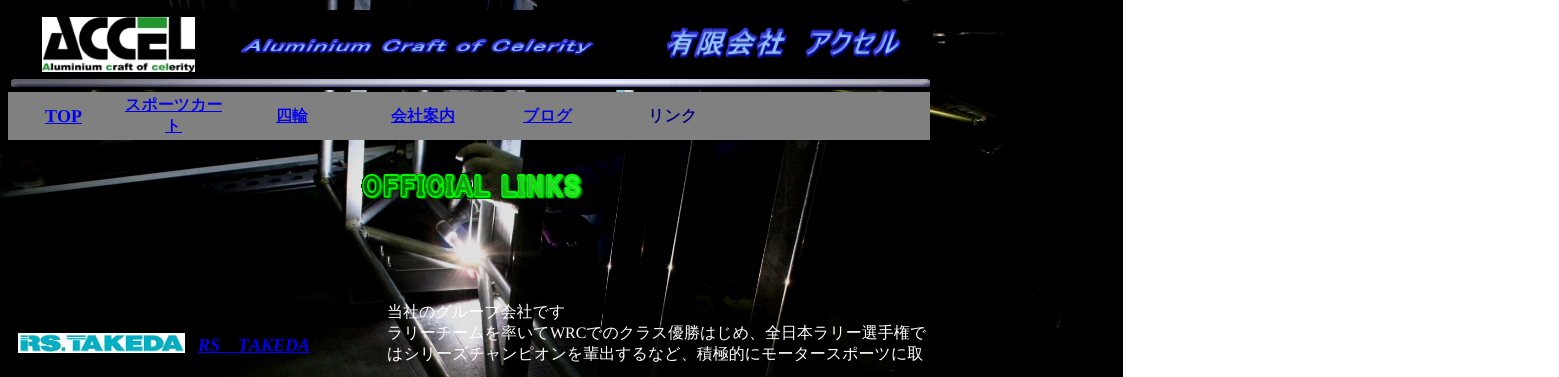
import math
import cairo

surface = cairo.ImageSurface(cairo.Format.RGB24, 1559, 377)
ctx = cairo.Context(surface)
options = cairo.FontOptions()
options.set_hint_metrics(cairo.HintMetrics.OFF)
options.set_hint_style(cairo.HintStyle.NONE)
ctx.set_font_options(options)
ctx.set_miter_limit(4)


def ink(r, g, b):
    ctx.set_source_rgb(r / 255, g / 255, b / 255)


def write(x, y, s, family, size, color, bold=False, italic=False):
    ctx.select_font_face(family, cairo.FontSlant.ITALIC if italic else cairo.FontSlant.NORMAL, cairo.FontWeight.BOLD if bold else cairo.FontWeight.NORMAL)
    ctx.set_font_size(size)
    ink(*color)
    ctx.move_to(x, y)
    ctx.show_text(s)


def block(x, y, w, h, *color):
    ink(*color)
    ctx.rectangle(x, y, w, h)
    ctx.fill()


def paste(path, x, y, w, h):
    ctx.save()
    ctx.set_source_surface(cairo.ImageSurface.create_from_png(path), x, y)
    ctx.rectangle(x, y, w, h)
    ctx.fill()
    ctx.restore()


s1 = dict(family="Liberation Serif", size=18, color=(0, 0, 238), bold=True)
s2 = dict(family="WenQuanYi Zen Hei", size=16, color=(0, 0, 238), bold=True)
s3 = dict(family="WenQuanYi Zen Hei", size=16, color=(0, 0, 128), bold=True)
s4 = dict(family="Liberation Serif", size=18, color=(0, 0, 238), bold=True, italic=True)
s5 = dict(family="WenQuanYi Zen Hei Medium", size=16, color=(255, 255, 255))
s6 = dict(family="Liberation Serif", size=16, color=(255, 255, 255))

ink(255, 255, 255)
ctx.paint()
paste("pic1.png", 0, 0, 1123, 377)
block(72, 10, 861, 80, 0, 0, 0)
paste("pic2.png", 42, 17, 153, 55)
paste("pic3.png", 240, 38, 354, 18)
paste("pic4.png", 666, 26, 235, 33)
paste("pic5.png", 11, 79, 919, 8)
block(8, 92, 922, 48, 128, 128, 128)
write(45, 122, "TOP", **s1)
block(45, 123, 37, 1, 0, 0, 238)
block(125, 111, 97, 1, 0, 0, 238)
write(125, 110, "スポーツカー", **s2)
block(165, 132, 17, 1, 0, 0, 238)
write(165, 131, "ト", **s2)
block(276, 122, 32, 1, 0, 0, 238)
write(276, 121, "四輪", **s2)
block(391, 122, 64, 1, 0, 0, 238)
write(391, 121, "会社案内", **s2)
block(523, 122, 49, 1, 0, 0, 238)
write(523, 121, "ブログ", **s2)
write(648, 121, "リンク", **s3)
paste("pic6.png", 361, 173, 223, 26)
paste("pic7.png", 18, 333, 167, 20)
write(198, 351, "RS", **s4)
block(198, 352, 112, 1, 0, 0, 238)
write(238, 351, "TAKEDA", **s4)
write(387, 317, "当社のグループ会社です", **s5)
write(387, 338, "ラリーチームを率いて", **s5)
write(550, 338, "WRC", **s6)
write(586, 338, "でのクラス優勝はじめ、全日本ラリー選手権で", **s5)
write(387, 359, "はシリーズチャンピオンを輩出するなど、積極的にモータースポーツに取", **s5)
surface.write_to_png("screenshot.png")
